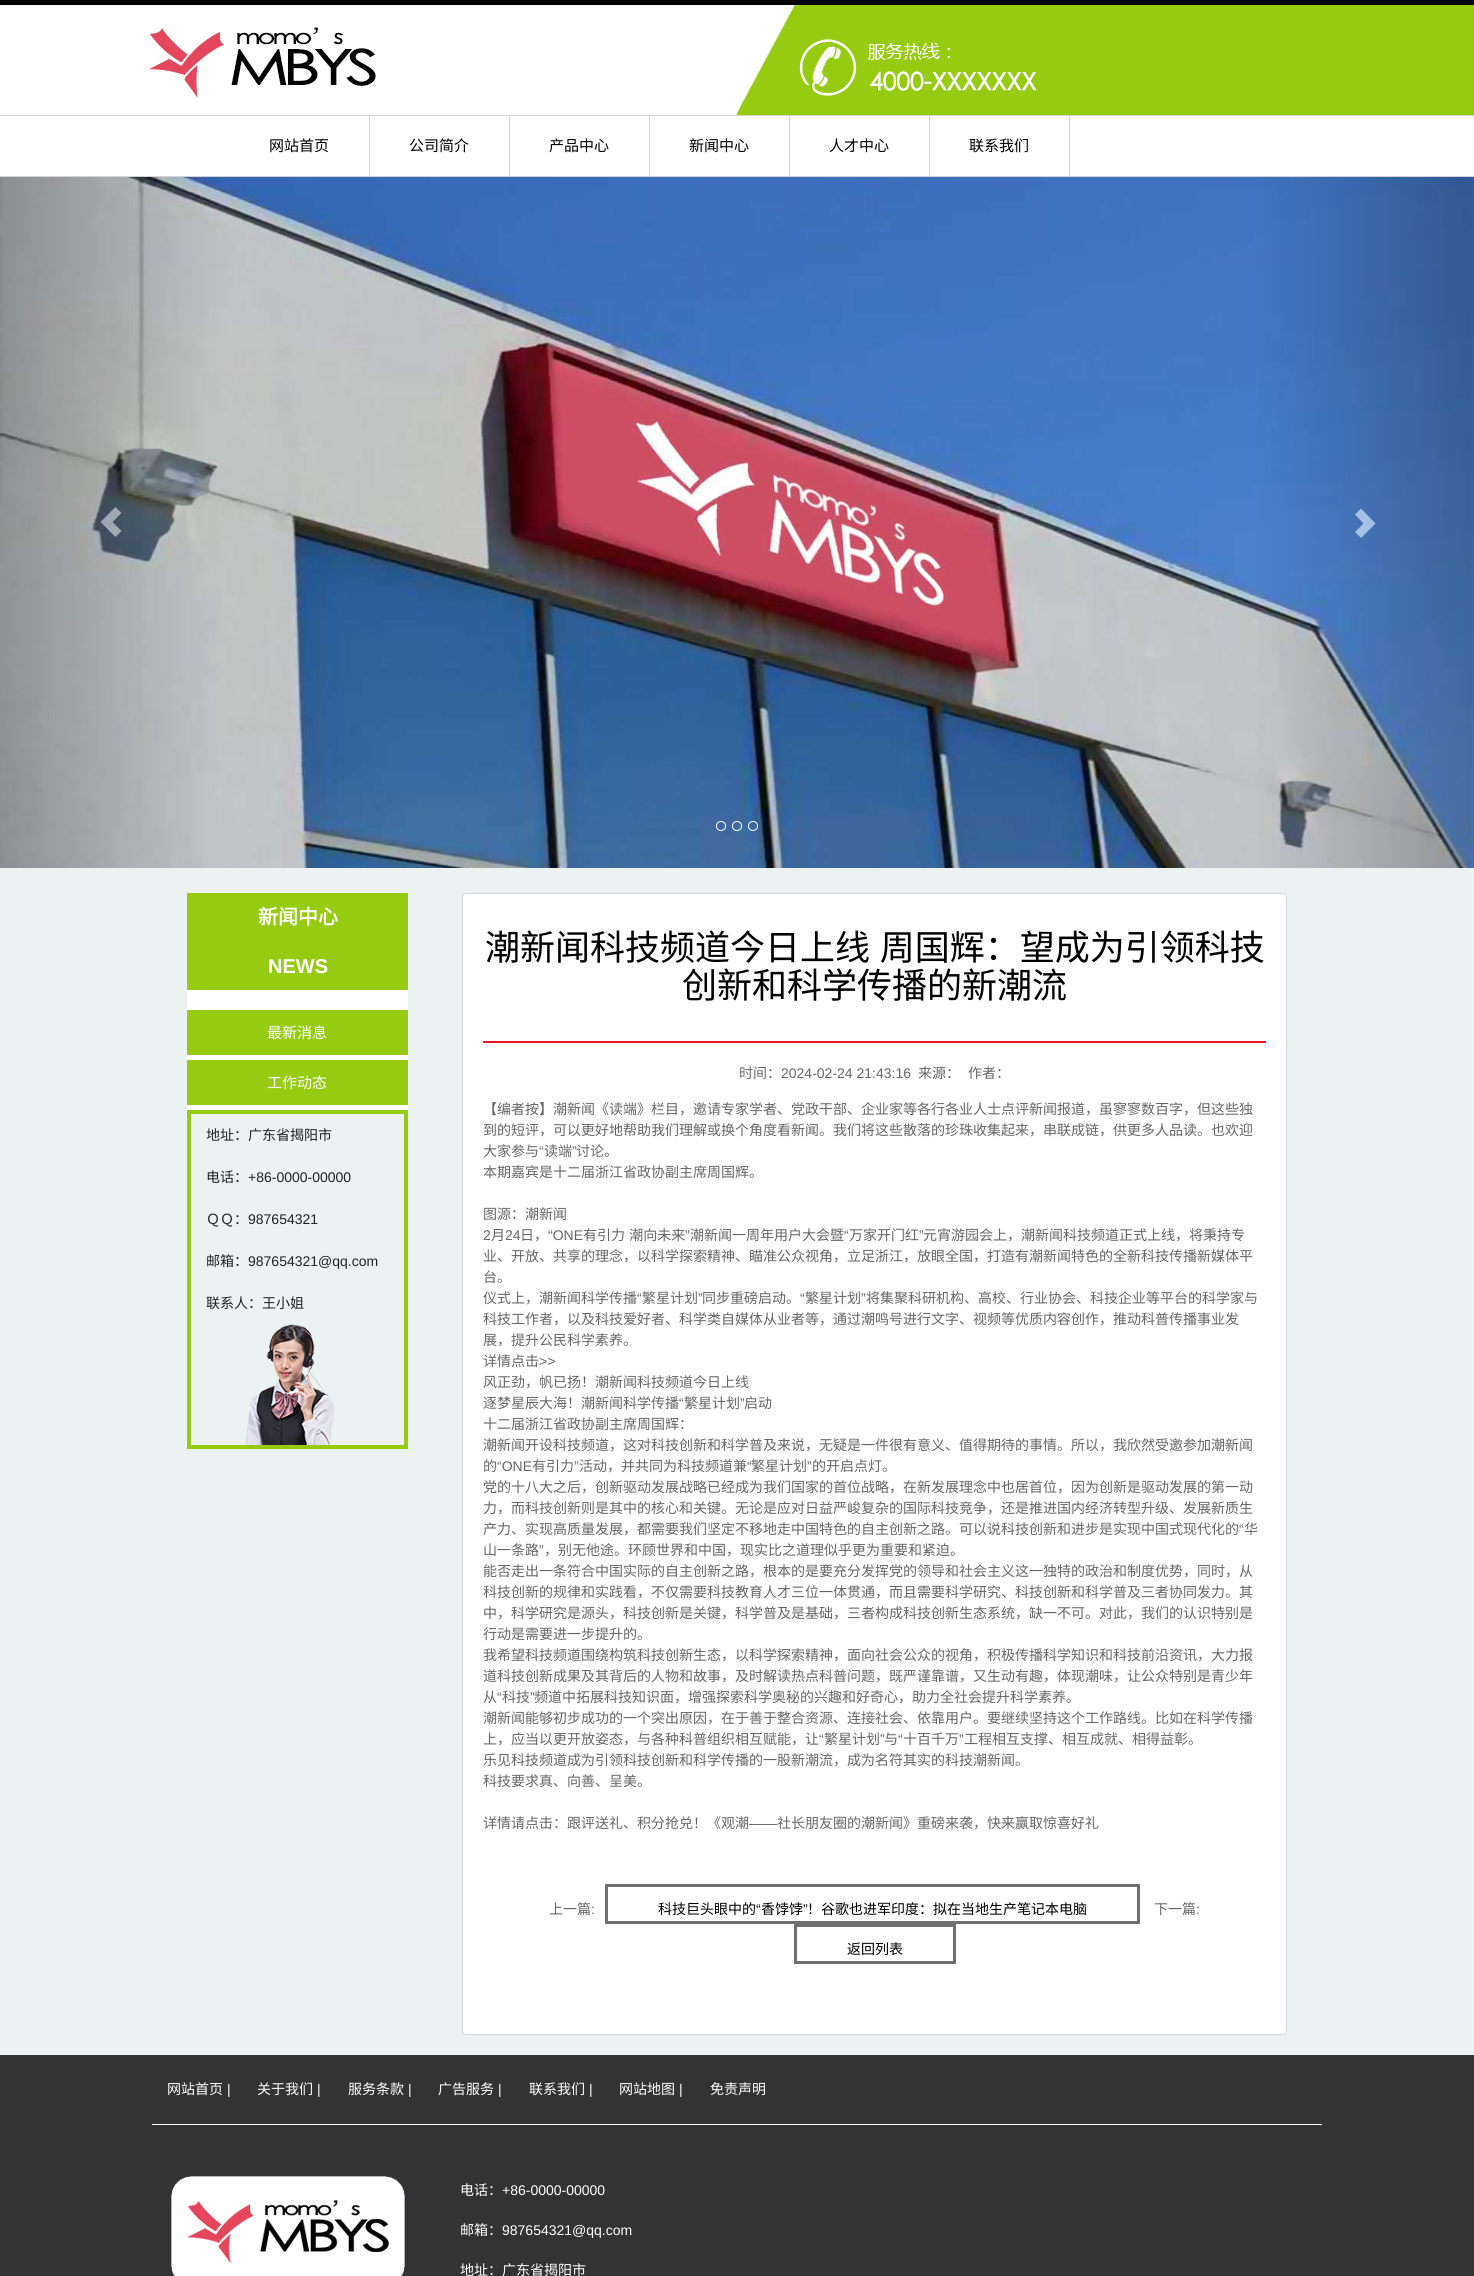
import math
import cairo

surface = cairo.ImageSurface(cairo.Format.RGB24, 1474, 2276)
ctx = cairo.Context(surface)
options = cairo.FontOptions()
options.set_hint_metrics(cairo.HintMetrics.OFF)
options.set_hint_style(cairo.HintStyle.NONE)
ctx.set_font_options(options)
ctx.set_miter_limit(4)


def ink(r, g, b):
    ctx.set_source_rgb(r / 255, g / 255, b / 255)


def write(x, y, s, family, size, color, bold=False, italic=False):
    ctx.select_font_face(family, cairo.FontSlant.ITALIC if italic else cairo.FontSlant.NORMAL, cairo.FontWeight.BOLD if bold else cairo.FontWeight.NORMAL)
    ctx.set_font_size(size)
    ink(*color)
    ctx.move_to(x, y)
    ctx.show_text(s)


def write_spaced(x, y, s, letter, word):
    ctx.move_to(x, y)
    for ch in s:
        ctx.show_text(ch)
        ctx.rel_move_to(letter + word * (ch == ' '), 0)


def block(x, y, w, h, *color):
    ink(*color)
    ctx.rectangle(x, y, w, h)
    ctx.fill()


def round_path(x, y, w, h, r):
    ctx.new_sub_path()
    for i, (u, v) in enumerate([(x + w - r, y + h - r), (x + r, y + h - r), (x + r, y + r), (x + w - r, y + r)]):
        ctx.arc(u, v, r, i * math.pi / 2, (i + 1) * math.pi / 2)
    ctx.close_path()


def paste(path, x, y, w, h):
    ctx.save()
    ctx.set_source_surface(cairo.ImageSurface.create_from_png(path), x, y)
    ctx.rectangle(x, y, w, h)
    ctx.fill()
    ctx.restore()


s1 = dict(family="Noto Sans CJK SC", size=15, color=(0, 0, 0))
s2 = dict(family="Noto Sans CJK SC", size=20, color=(255, 255, 255), bold=True)
s3 = dict(family="Liberation Sans", size=20, color=(255, 255, 255), bold=True)
s4 = dict(family="Noto Sans CJK SC", size=15, color=(255, 255, 255))
s5 = dict(family="Noto Sans CJK SC", size=14, color=(34, 34, 34))
s6 = dict(family="Liberation Sans", size=14, color=(34, 34, 34))
s7 = dict(family="Noto Sans CJK SC", size=35, color=(0, 0, 0))
s8 = dict(family="Noto Sans CJK SC", size=14, color=(102, 102, 102))
s9 = dict(family="Liberation Sans", size=14, color=(102, 102, 102))
s10 = dict(family="Noto Sans CJK SC", size=14, color=(0, 0, 0))
s11 = dict(family="Liberation Sans", size=14, color=(0, 0, 0))
s12 = dict(family="Noto Sans CJK SC", size=14, color=(255, 255, 255))
s13 = dict(family="Liberation Sans", size=14, color=(255, 255, 255))

ink(255, 255, 255)
ctx.paint()
block(0, 0, 1474, 5, 0, 0, 0)
paste("pic1.png", 148, 27, 228, 71)
block(737, 5, 737, 110, 151, 203, 17)
paste("pic2.png", 737, 5, 58, 109)
paste("pic3.png", 797, 37, 240, 62)
block(0, 115, 1474, 1, 211, 211, 211)
block(0, 176, 1474, 1, 211, 211, 211)
block(369, 116, 1, 60, 211, 211, 211)
write(269, 151, "网站首页", **s1)
block(509, 116, 1, 60, 211, 211, 211)
write(409, 151, "公司简介", **s1)
block(649, 116, 1, 60, 211, 211, 211)
write(549, 151, "产品中心", **s1)
block(789, 116, 1, 60, 211, 211, 211)
write(689, 151, "新闻中心", **s1)
block(929, 116, 1, 60, 211, 211, 211)
write(829, 151, "人才中心", **s1)
block(1069, 116, 1, 60, 211, 211, 211)
write(969, 151, "联系我们", **s1)
paste("pic4.png", 0, 177, 1474, 691)
ctx.set_source_rgba(1, 1, 1, 0.5)
ctx.new_path()
ctx.move_to(100.5, 522)
ctx.line_to(115.5, 537)
ctx.line_to(121.5, 531)
ctx.line_to(112.5, 522)
ctx.line_to(121.5, 513)
ctx.line_to(115.5, 507)
ctx.close_path()
ctx.fill()
ink(166, 192, 230)
ctx.new_path()
ctx.move_to(1355, 532)
ctx.line_to(1363.5, 523.5)
ctx.line_to(1355, 514.5)
ctx.line_to(1361, 508.5)
ctx.line_to(1375.5, 523.5)
ctx.line_to(1361, 538)
ctx.close_path()
ctx.fill()
ctx.arc(721, 826, 4.5, 0, 2 * math.pi)
ink(255, 255, 255)
ctx.set_line_width(1)
ctx.stroke()
ctx.arc(737, 826, 4.5, 0, 2 * math.pi)
ctx.stroke()
ctx.arc(753, 826, 4.5, 0, 2 * math.pi)
ctx.stroke()
block(0, 868, 1474, 1187, 236, 241, 242)
block(187, 990, 221, 120, 255, 255, 255)
block(187, 893, 221, 97, 150, 203, 17)
write(258, 924, "新闻中心", **s2)
write(268, 973, "NEWS", **s3)
block(187, 1010, 221, 45, 150, 203, 17)
write(267, 1038, "最新消息", **s4)
block(187, 1060, 221, 45, 150, 203, 17)
write(267, 1088, "工作动态", **s4)
ctx.rectangle(189, 1112, 217, 335)
ink(150, 203, 17)
ctx.set_line_width(4)
ctx.stroke()
write(206, 1140, "地址：广东省揭阳市", **s5)
write(206, 1182, "电话：", **s5)
write(248, 1182, "+86-0000-00000", **s6)
write(206, 1224, "ＱＱ：", **s5)
write(248, 1224, "987654321", **s6)
write(206, 1266, "邮箱：", **s5)
write(248, 1266, "987654321@qq.com", **s6)
write(206, 1308, "联系人：王小姐", **s5)
paste("pic5.png", 245, 1324, 89, 121)
ink(255, 255, 255)
round_path(462.5, 893.5, 824, 1141, 3.5)
ctx.fill_preserve()
ink(213, 213, 213)
ctx.set_line_width(1)
ctx.stroke()
ctx.set_font_size(35)
ink(0, 0, 0)
write_spaced(485, 960, "潮新闻科技频道今日上线 周国辉：望成为引领科技", 0, 2)
write(682, 998, "创新和科学传播的新潮流", **s7)
block(483, 1041, 783, 2, 237, 22, 40)
write(739, 1078, "时间：", **s8)
write(781, 1078, "2024-02-24 21:43:16", **s9)
write(918, 1078, "来源：", **s8)
write(968, 1078, "作者：", **s8)
write(483, 1114, "【编者按】潮新闻《读端》栏目，邀请专家学者、党政干部、企业家等各行各业人士点评新闻报道，虽寥寥数百字，但这些独", **s8)
write(483, 1135, "到的短评，可以更好地帮助我们理解或换个角度看新闻。我们将这些散落的珍珠收集起来，串联成链，供更多人品读。也欢迎", **s8)
write(483, 1156, "大家参与", **s8)
write(539, 1156, "“", **s9)
write(544, 1156, "读端", **s8)
write(572, 1156, "”", **s9)
write(576, 1156, "讨论。", **s8)
write(483, 1177, "本期嘉宾是十二届浙江省政协副主席周国辉。", **s8)
write(483, 1219, "图源：潮新闻", **s8)
write(483, 1240, "2", **s9)
write(491, 1240, "月", **s8)
write(505, 1240, "24", **s9)
write(520, 1240, "日，", **s8)
write(548, 1240, "“ONE", **s9)
ctx.select_font_face("Noto Sans CJK SC")
write_spaced(583, 1240, "有引力 潮向未来", 0, 1)
write(685, 1240, "”", **s9)
write(690, 1240, "潮新闻一周年用户大会暨", **s8)
write(844, 1240, "“", **s9)
write(849, 1240, "万家开门红", **s8)
write(919, 1240, "”", **s9)
write(923, 1240, "元宵游园会上，潮新闻科技频道正式上线，将秉持专", **s8)
write(483, 1261, "业、开放、共享的理念，以科学探索精神、瞄准公众视角，立足浙江，放眼全国，打造有潮新闻特色的全新科技传播新媒体平", **s8)
write(483, 1282, "台。", **s8)
write(483, 1303, "仪式上，潮新闻科学传播", **s8)
write(637, 1303, "“", **s9)
write(642, 1303, "繁星计划", **s8)
write(698, 1303, "”", **s9)
write(702, 1303, "同步重磅启动。", **s8)
write(800, 1303, "“", **s9)
write(805, 1303, "繁星计划", **s8)
write(861, 1303, "”", **s9)
write(866, 1303, "将集聚科研机构、高校、行业协会、科技企业等平台的科学家与", **s8)
write(483, 1324, "科技工作者，以及科技爱好者、科学类自媒体从业者等，通过潮鸣号进行文字、视频等优质内容创作，推动科普传播事业发", **s8)
write(483, 1345, "展，提升公民科学素养。", **s8)
write(483, 1366, "详情点击", **s8)
write(539, 1366, ">>", **s9)
write(483, 1387, "风正劲，帆已扬！潮新闻科技频道今日上线", **s8)
write(483, 1408, "逐梦星辰大海！潮新闻科学传播", **s8)
write(679, 1408, "“", **s9)
write(684, 1408, "繁星计划", **s8)
write(740, 1408, "”", **s9)
write(744, 1408, "启动", **s8)
write(483, 1429, "十二届浙江省政协副主席周国辉：", **s8)
write(483, 1450, "潮新闻开设科技频道，这对科技创新和科学普及来说，无疑是一件很有意义、值得期待的事情。所以，我欣然受邀参加潮新闻", **s8)
write(483, 1471, "的", **s8)
write(497, 1471, "“ONE", **s9)
write(532, 1471, "有引力", **s8)
write(574, 1471, "”", **s9)
write(579, 1471, "活动，并共同为科技频道兼", **s8)
write(747, 1471, "“", **s9)
write(751, 1471, "繁星计划", **s8)
write(807, 1471, "”", **s9)
write(812, 1471, "的开启点灯。", **s8)
write(483, 1492, "党的十八大之后，创新驱动发展战略已经成为我们国家的首位战略，在新发展理念中也居首位，因为创新是驱动发展的第一动", **s8)
write(483, 1513, "力，而科技创新则是其中的核心和关键。无论是应对日益严峻复杂的国际科技竞争，还是推进国内经济转型升级、发展新质生", **s8)
write(483, 1534, "产力、实现高质量发展，都需要我们坚定不移地走中国特色的自主创新之路。可以说科技创新和进步是实现中国式现代化的", **s8)
write(1239, 1534, "“", **s9)
write(1244, 1534, "华", **s8)
write(483, 1555, "山一条路", **s8)
write(539, 1555, "”", **s9)
write(544, 1555, "，别无他途。环顾世界和中国，现实比之道理似乎更为重要和紧迫。", **s8)
write(483, 1576, "能否走出一条符合中国实际的自主创新之路，根本的是要充分发挥党的领导和社会主义这一独特的政治和制度优势，同时，从", **s8)
write(483, 1597, "科技创新的规律和实践看，不仅需要科技教育人才三位一体贯通，而且需要科学研究、科技创新和科学普及三者协同发力。其", **s8)
write(483, 1618, "中，科学研究是源头，科技创新是关键，科学普及是基础，三者构成科技创新生态系统，缺一不可。对此，我们的认识特别是", **s8)
write(483, 1639, "行动是需要进一步提升的。", **s8)
write(483, 1660, "我希望科技频道围绕构筑科技创新生态，以科学探索精神，面向社会公众的视角，积极传播科学知识和科技前沿资讯，大力报", **s8)
write(483, 1681, "道科技创新成果及其背后的人物和故事，及时解读热点科普问题，既严谨靠谱，又生动有趣，体现潮味，让公众特别是青少年", **s8)
write(483, 1702, "从", **s8)
write(497, 1702, "“", **s9)
write(502, 1702, "科技", **s8)
write(530, 1702, "”", **s9)
write(534, 1702, "频道中拓展科技知识面，增强探索科学奥秘的兴趣和好奇心，助力全社会提升科学素养。", **s8)
write(483, 1723, "潮新闻能够初步成功的一个突出原因，在于善于整合资源、连接社会、依靠用户。要继续坚持这个工作路线。比如在科学传播", **s8)
write(483, 1744, "上，应当以更开放姿态，与各种科普组织相互赋能，让", **s8)
write(819, 1744, "“", **s9)
write(824, 1744, "繁星计划", **s8)
write(880, 1744, "”", **s9)
write(884, 1744, "与", **s8)
write(898, 1744, "“", **s9)
write(903, 1744, "十百千万", **s8)
write(959, 1744, "”", **s9)
write(964, 1744, "工程相互支撑、相互成就、相得益彰。", **s8)
write(483, 1765, "乐见科技频道成为引领科技创新和科学传播的一股新潮流，成为名符其实的科技潮新闻。", **s8)
write(483, 1786, "科技要求真、向善、呈美。", **s8)
write(483, 1828, "详情请点击：跟评送礼、积分抢兑！《观潮", **s8)
write(749, 1828, "——", **s9)
write(777, 1828, "社长朋友圈的潮新闻》重磅来袭，快来赢取惊喜好礼", **s8)
write(549, 1914, "上一篇", **s8)
write(591, 1914, ":", **s9)
ctx.rectangle(606.5, 1885.5, 532, 37)
ink(113, 113, 113)
ctx.set_line_width(3)
ctx.stroke()
write(658, 1914, "科技巨头眼中的", **s10)
write(756, 1914, "“", **s11)
write(761, 1914, "香饽饽", **s10)
write(803, 1914, "”", **s11)
write(807, 1914, "！谷歌也进军印度：拟在当地生产笔记本电脑", **s10)
write(1154, 1914, "下一篇", **s8)
write(1196, 1914, ":", **s9)
ctx.rectangle(795.5, 1925.5, 159, 37)
ink(113, 113, 113)
ctx.stroke()
write(847, 1954, "返回列表", **s10)
block(0, 2055, 1474, 221, 51, 51, 51)
block(152, 2124, 1170, 1, 255, 255, 255)
write(167, 2094, "网站首页", **s12)
write(227, 2094, "|", **s13)
write(257, 2094, "关于我们", **s12)
write(317, 2094, "|", **s13)
write(348, 2094, "服务条款", **s12)
write(408, 2094, "|", **s13)
write(438, 2094, "广告服务", **s12)
write(498, 2094, "|", **s13)
write(529, 2094, "联系我们", **s12)
write(589, 2094, "|", **s13)
write(619, 2094, "网站地图", **s12)
write(679, 2094, "|", **s13)
write(710, 2094, "免责声明", **s12)
paste("pic6.png", 169, 2174, 236, 102)
write(460, 2195, "电话：", **s12)
write(502, 2195, "+86-0000-00000", **s13)
write(460, 2235, "邮箱：", **s12)
write(502, 2235, "987654321@qq.com", **s13)
write(460, 2275, "地址：广东省揭阳市", **s12)
surface.write_to_png("screenshot.png")
